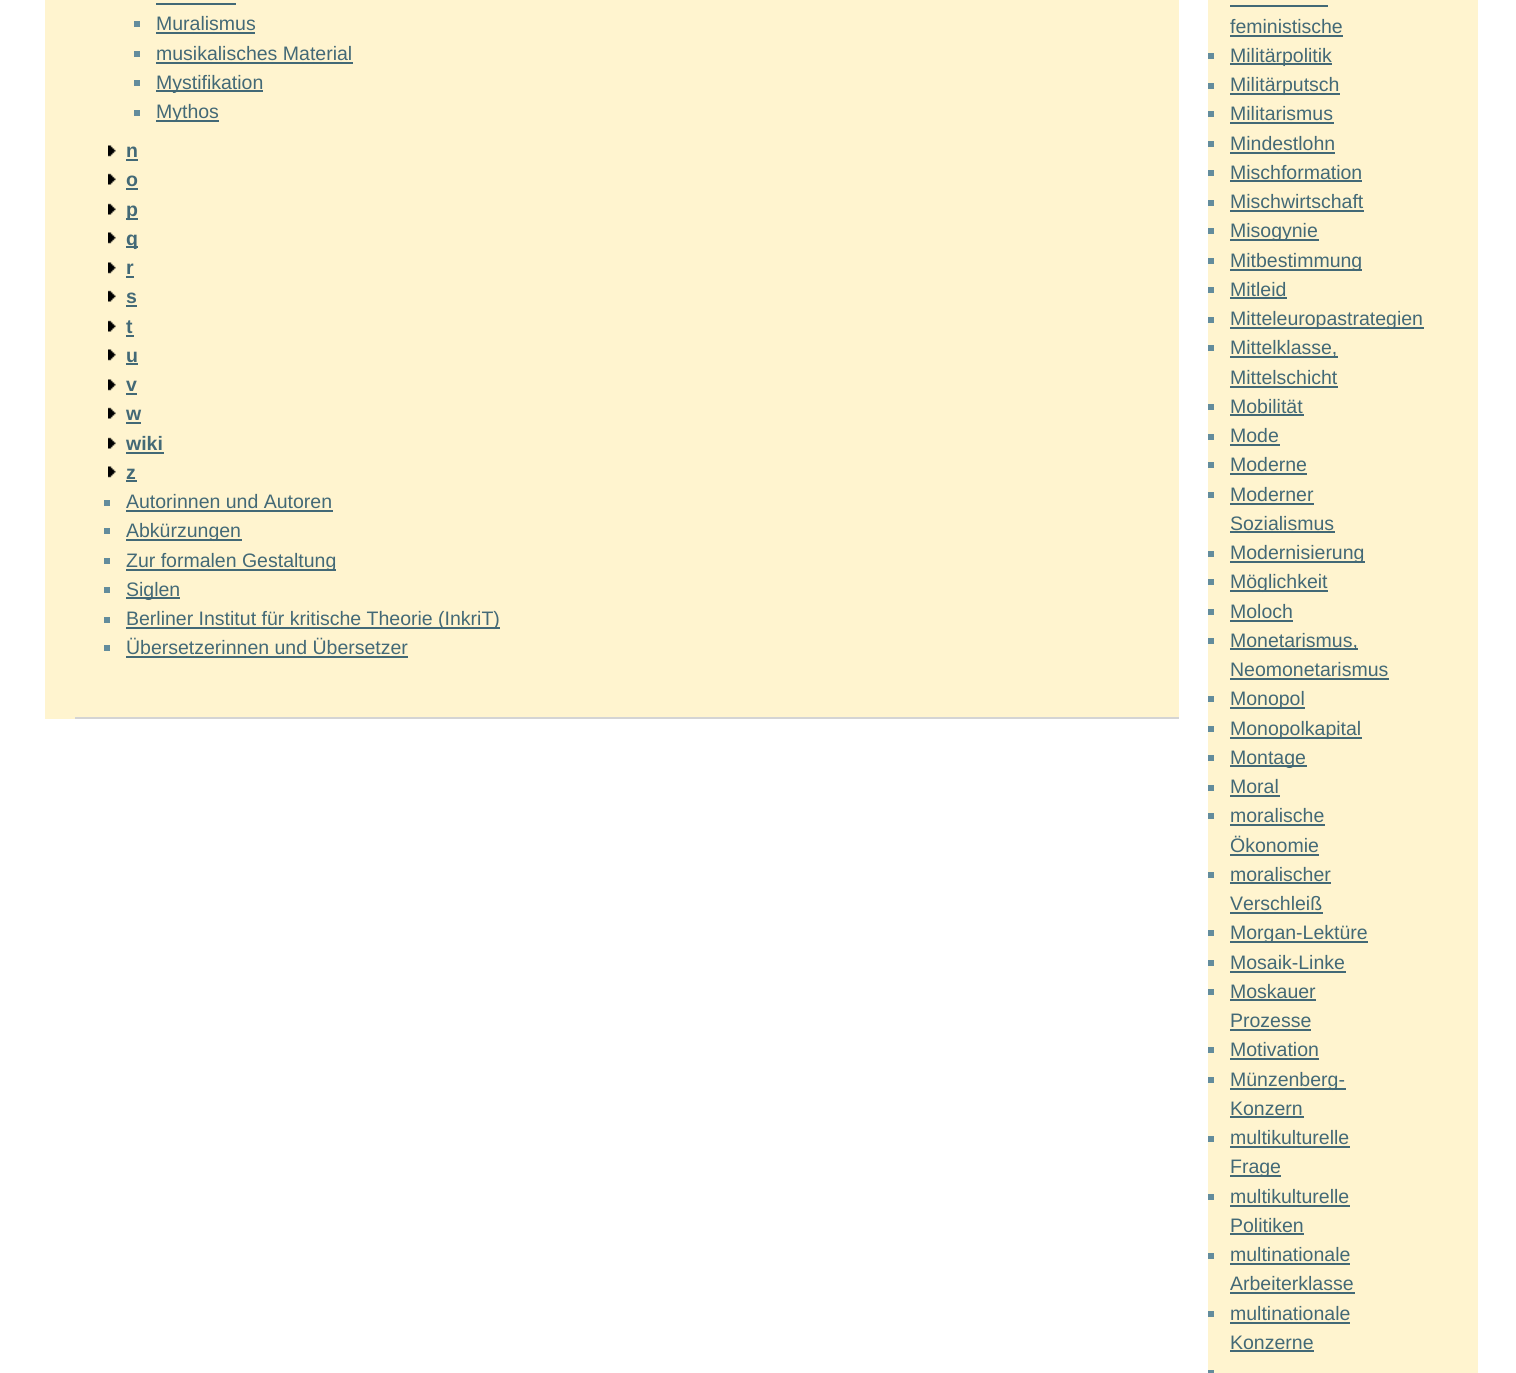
import math
import cairo

surface = cairo.ImageSurface(cairo.Format.RGB24, 1516, 1373)
ctx = cairo.Context(surface)
options = cairo.FontOptions()
options.set_hint_metrics(cairo.HintMetrics.OFF)
options.set_hint_style(cairo.HintStyle.NONE)
ctx.set_font_options(options)
ctx.set_miter_limit(4)


def ink(r, g, b):
    ctx.set_source_rgb(r / 255, g / 255, b / 255)


def write(x, y, s, family, size, color, bold=False, italic=False):
    ctx.select_font_face(family, cairo.FontSlant.ITALIC if italic else cairo.FontSlant.NORMAL, cairo.FontWeight.BOLD if bold else cairo.FontWeight.NORMAL)
    ctx.set_font_size(size)
    ink(*color)
    ctx.move_to(x, y)
    ctx.show_text(s)


def block(x, y, w, h, *color):
    ink(*color)
    ctx.rectangle(x, y, w, h)
    ctx.fill()


def paste(path, x, y, w, h):
    ctx.save()
    ctx.set_source_surface(cairo.ImageSurface.create_from_png(path), x, y)
    ctx.rectangle(x, y, w, h)
    ctx.fill()
    ctx.restore()


s1 = dict(family="Liberation Sans", size=19.5, color=(67, 105, 118))
s2 = dict(family="Liberation Sans", size=19.5, color=(67, 105, 118), bold=True)

ink(255, 255, 255)
ctx.paint()
block(45, 0, 1134, 719, 255, 244, 207)
block(75, 717, 1104, 2, 212, 212, 212)
block(156, 3, 80, 2, 67, 105, 118)
block(134, 21, 6, 6, 99, 140, 156)
write(156, 30, "Muralismus", **s1)
block(156, 32, 99, 2, 67, 105, 118)
block(134, 51, 6, 6, 99, 140, 156)
write(156, 60, "musikalisches Material", **s1)
block(156, 62, 197, 2, 67, 105, 118)
block(134, 80, 6, 6, 99, 140, 156)
block(156, 90, 107, 2, 67, 105, 118)
write(156, 89, "Mystifikation", **s1)
block(134, 110, 6, 6, 99, 140, 156)
block(156, 120, 63, 2, 67, 105, 118)
write(156, 118, "Mythos", **s1)
paste("pic1.png", 108, 145, 8, 12)
write(126, 157, "n", **s2)
block(126, 159, 12, 2, 67, 105, 118)
paste("pic2.png", 108, 173, 8, 12)
write(126, 186, "o", **s2)
block(126, 188, 12, 2, 67, 105, 118)
paste("pic2.png", 108, 203, 8, 12)
block(126, 218, 12, 2, 67, 105, 118)
write(126, 216, "p", **s2)
paste("pic1.png", 108, 232, 8, 12)
block(126, 246, 12, 2, 67, 105, 118)
write(126, 245, "q", **s2)
paste("pic1.png", 108, 262, 8, 12)
write(126, 274, "r", **s2)
block(126, 276, 8, 2, 67, 105, 118)
paste("pic2.png", 108, 290, 8, 12)
write(126, 303, "s", **s2)
block(126, 305, 11, 2, 67, 105, 118)
paste("pic2.png", 108, 320, 8, 12)
write(126, 333, "t", **s2)
block(126, 335, 8, 2, 67, 105, 118)
paste("pic1.png", 108, 349, 8, 12)
write(126, 362, "u", **s2)
block(126, 363, 12, 2, 67, 105, 118)
paste("pic1.png", 108, 379, 8, 12)
write(126, 391, "v", **s2)
block(126, 393, 11, 2, 67, 105, 118)
paste("pic2.png", 108, 407, 8, 12)
write(126, 420, "w", **s2)
block(126, 422, 15, 2, 67, 105, 118)
paste("pic2.png", 108, 437, 8, 12)
write(126, 450, "wiki", **s2)
block(126, 452, 38, 2, 67, 105, 118)
paste("pic1.png", 108, 466, 8, 12)
write(126, 479, "z", **s2)
block(126, 480, 11, 2, 67, 105, 118)
block(104, 500, 6, 6, 99, 140, 156)
write(126, 508, "Autorinnen und Autoren", **s1)
block(126, 510, 207, 2, 67, 105, 118)
block(104, 528, 6, 6, 99, 140, 156)
block(126, 539, 116, 2, 67, 105, 118)
write(126, 537, "Abkürzungen", **s1)
block(104, 558, 6, 6, 99, 140, 156)
block(126, 569, 210, 2, 67, 105, 118)
write(126, 567, "Zur formalen Gestaltung", **s1)
block(104, 587, 6, 6, 99, 140, 156)
block(126, 597, 54, 2, 67, 105, 118)
write(126, 596, "Siglen", **s1)
block(104, 617, 6, 6, 99, 140, 156)
block(126, 627, 374, 2, 67, 105, 118)
write(126, 625, "Berliner Institut für kritische Theorie (InkriT)", **s1)
block(104, 645, 6, 6, 99, 140, 156)
write(126, 654, "Übersetzerinnen und Übersetzer", **s1)
block(126, 656, 282, 2, 67, 105, 118)
block(1208, 0, 270, 1373, 255, 244, 207)
write(1230, 33, "feministische", **s1)
block(1230, 5, 98, 2, 67, 105, 118)
block(1230, 35, 113, 2, 67, 105, 118)
block(1208, 53, 6, 6, 99, 140, 156)
block(1230, 63, 102, 2, 67, 105, 118)
write(1230, 62, "Militärpolitik", **s1)
block(1208, 83, 6, 6, 99, 140, 156)
block(1230, 93, 110, 2, 67, 105, 118)
write(1230, 91, "Militärputsch", **s1)
block(1208, 111, 6, 6, 99, 140, 156)
write(1230, 120, "Militarismus", **s1)
block(1230, 122, 104, 2, 67, 105, 118)
block(1208, 141, 6, 6, 99, 140, 156)
write(1230, 150, "Mindestlohn", **s1)
block(1230, 152, 105, 2, 67, 105, 118)
block(1208, 170, 6, 6, 99, 140, 156)
write(1230, 179, "Mischformation", **s1)
block(1230, 180, 132, 2, 67, 105, 118)
block(1208, 200, 6, 6, 99, 140, 156)
write(1230, 208, "Mischwirtschaft", **s1)
block(1230, 210, 134, 2, 67, 105, 118)
block(1208, 228, 6, 6, 99, 140, 156)
block(1230, 239, 89, 2, 67, 105, 118)
write(1230, 237, "Misogynie", **s1)
block(1208, 258, 6, 6, 99, 140, 156)
block(1230, 269, 132, 2, 67, 105, 118)
write(1230, 267, "Mitbestimmung", **s1)
block(1208, 287, 6, 6, 99, 140, 156)
write(1230, 296, "Mitleid", **s1)
block(1230, 297, 57, 2, 67, 105, 118)
block(1208, 317, 6, 6, 99, 140, 156)
block(1230, 327, 194, 2, 67, 105, 118)
write(1230, 325, "Mitteleuropastrategien", **s1)
block(1208, 345, 6, 6, 99, 140, 156)
block(1230, 356, 108, 2, 67, 105, 118)
write(1230, 354, "Mittelklasse,", **s1)
write(1230, 384, "Mittelschicht", **s1)
block(1230, 386, 108, 2, 67, 105, 118)
block(1208, 404, 6, 6, 99, 140, 156)
write(1230, 413, "Mobilität", **s1)
block(1230, 414, 74, 2, 67, 105, 118)
block(1208, 434, 6, 6, 99, 140, 156)
write(1230, 442, "Mode", **s1)
block(1230, 444, 50, 2, 67, 105, 118)
block(1208, 462, 6, 6, 99, 140, 156)
write(1230, 471, "Moderne", **s1)
block(1230, 473, 77, 2, 67, 105, 118)
block(1208, 492, 6, 6, 99, 140, 156)
write(1230, 501, "Moderner", **s1)
block(1230, 503, 84, 2, 67, 105, 118)
write(1230, 530, "Sozialismus", **s1)
block(1230, 531, 105, 2, 67, 105, 118)
block(1208, 551, 6, 6, 99, 140, 156)
block(1230, 561, 135, 2, 67, 105, 118)
write(1230, 559, "Modernisierung", **s1)
block(1208, 579, 6, 6, 99, 140, 156)
block(1230, 590, 98, 2, 67, 105, 118)
write(1230, 588, "Möglichkeit", **s1)
block(1208, 609, 6, 6, 99, 140, 156)
write(1230, 618, "Moloch", **s1)
block(1230, 620, 63, 2, 67, 105, 118)
block(1208, 638, 6, 6, 99, 140, 156)
block(1230, 648, 128, 2, 67, 105, 118)
write(1230, 647, "Monetarismus,", **s1)
write(1230, 676, "Neomonetarismus", **s1)
block(1230, 678, 159, 2, 67, 105, 118)
block(1208, 696, 6, 6, 99, 140, 156)
block(1230, 707, 75, 2, 67, 105, 118)
write(1230, 705, "Monopol", **s1)
block(1208, 726, 6, 6, 99, 140, 156)
block(1230, 737, 132, 2, 67, 105, 118)
write(1230, 735, "Monopolkapital", **s1)
block(1208, 755, 6, 6, 99, 140, 156)
block(1230, 765, 77, 2, 67, 105, 118)
write(1230, 764, "Montage", **s1)
block(1208, 785, 6, 6, 99, 140, 156)
write(1230, 793, "Moral", **s1)
block(1230, 795, 50, 2, 67, 105, 118)
block(1208, 813, 6, 6, 99, 140, 156)
write(1230, 822, "moralische", **s1)
block(1230, 824, 95, 2, 67, 105, 118)
write(1230, 852, "Ökonomie", **s1)
block(1230, 854, 89, 2, 67, 105, 118)
block(1208, 872, 6, 6, 99, 140, 156)
write(1230, 881, "moralischer", **s1)
block(1230, 882, 101, 2, 67, 105, 118)
write(1230, 910, "Verschleiß", **s1)
block(1230, 912, 93, 2, 67, 105, 118)
block(1208, 930, 6, 6, 99, 140, 156)
block(1230, 941, 138, 2, 67, 105, 118)
write(1230, 939, "Morgan-Lektüre", **s1)
block(1208, 960, 6, 6, 99, 140, 156)
write(1230, 969, "Mosaik-Linke", **s1)
block(1230, 971, 116, 2, 67, 105, 118)
block(1208, 989, 6, 6, 99, 140, 156)
write(1230, 998, "Moskauer", **s1)
block(1230, 999, 86, 2, 67, 105, 118)
write(1230, 1027, "Prozesse", **s1)
block(1230, 1029, 81, 2, 67, 105, 118)
block(1208, 1047, 6, 6, 99, 140, 156)
write(1230, 1056, "Motivation", **s1)
block(1230, 1058, 89, 2, 67, 105, 118)
block(1208, 1077, 6, 6, 99, 140, 156)
block(1230, 1088, 116, 2, 67, 105, 118)
write(1230, 1086, "Münzenberg-", **s1)
write(1230, 1115, "Konzern", **s1)
block(1230, 1116, 74, 2, 67, 105, 118)
block(1208, 1136, 6, 6, 99, 140, 156)
write(1230, 1144, "multikulturelle", **s1)
block(1230, 1146, 120, 2, 67, 105, 118)
block(1230, 1175, 51, 2, 67, 105, 118)
write(1230, 1173, "Frage", **s1)
block(1208, 1194, 6, 6, 99, 140, 156)
write(1230, 1203, "multikulturelle", **s1)
block(1230, 1205, 120, 2, 67, 105, 118)
write(1230, 1232, "Politiken", **s1)
block(1230, 1233, 74, 2, 67, 105, 118)
block(1208, 1253, 6, 6, 99, 140, 156)
write(1230, 1261, "multinationale", **s1)
block(1230, 1263, 120, 2, 67, 105, 118)
write(1230, 1290, "Arbeiterklasse", **s1)
block(1230, 1292, 125, 2, 67, 105, 118)
block(1208, 1311, 6, 6, 99, 140, 156)
write(1230, 1320, "multinationale", **s1)
block(1230, 1322, 120, 2, 67, 105, 118)
write(1230, 1349, "Konzerne", **s1)
block(1230, 1350, 84, 2, 67, 105, 118)
block(1208, 1370, 6, 3, 99, 140, 156)
surface.write_to_png("screenshot.png")
